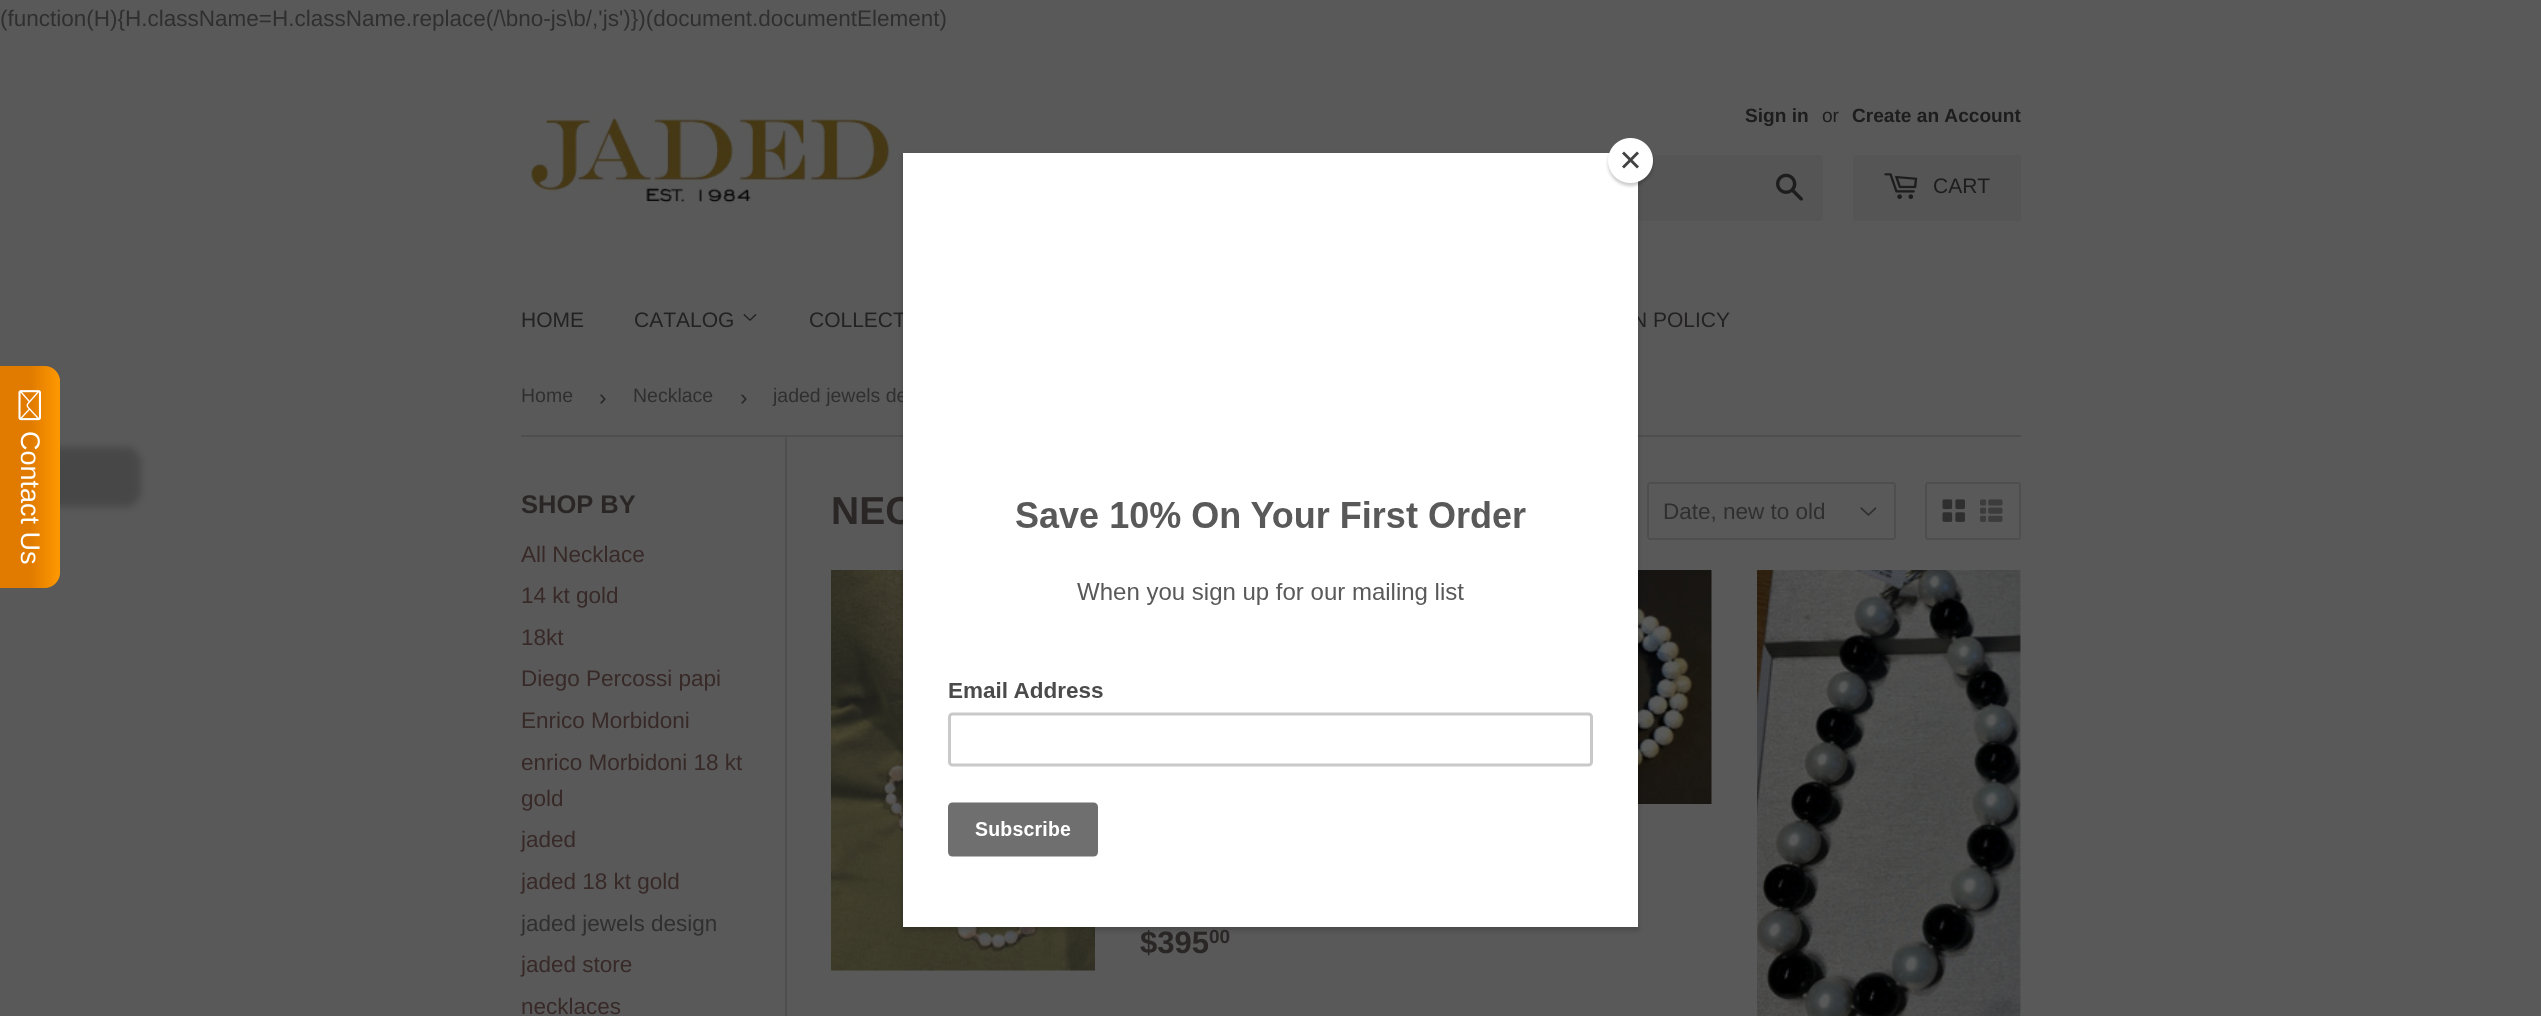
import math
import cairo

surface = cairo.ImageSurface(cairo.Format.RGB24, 2541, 1016)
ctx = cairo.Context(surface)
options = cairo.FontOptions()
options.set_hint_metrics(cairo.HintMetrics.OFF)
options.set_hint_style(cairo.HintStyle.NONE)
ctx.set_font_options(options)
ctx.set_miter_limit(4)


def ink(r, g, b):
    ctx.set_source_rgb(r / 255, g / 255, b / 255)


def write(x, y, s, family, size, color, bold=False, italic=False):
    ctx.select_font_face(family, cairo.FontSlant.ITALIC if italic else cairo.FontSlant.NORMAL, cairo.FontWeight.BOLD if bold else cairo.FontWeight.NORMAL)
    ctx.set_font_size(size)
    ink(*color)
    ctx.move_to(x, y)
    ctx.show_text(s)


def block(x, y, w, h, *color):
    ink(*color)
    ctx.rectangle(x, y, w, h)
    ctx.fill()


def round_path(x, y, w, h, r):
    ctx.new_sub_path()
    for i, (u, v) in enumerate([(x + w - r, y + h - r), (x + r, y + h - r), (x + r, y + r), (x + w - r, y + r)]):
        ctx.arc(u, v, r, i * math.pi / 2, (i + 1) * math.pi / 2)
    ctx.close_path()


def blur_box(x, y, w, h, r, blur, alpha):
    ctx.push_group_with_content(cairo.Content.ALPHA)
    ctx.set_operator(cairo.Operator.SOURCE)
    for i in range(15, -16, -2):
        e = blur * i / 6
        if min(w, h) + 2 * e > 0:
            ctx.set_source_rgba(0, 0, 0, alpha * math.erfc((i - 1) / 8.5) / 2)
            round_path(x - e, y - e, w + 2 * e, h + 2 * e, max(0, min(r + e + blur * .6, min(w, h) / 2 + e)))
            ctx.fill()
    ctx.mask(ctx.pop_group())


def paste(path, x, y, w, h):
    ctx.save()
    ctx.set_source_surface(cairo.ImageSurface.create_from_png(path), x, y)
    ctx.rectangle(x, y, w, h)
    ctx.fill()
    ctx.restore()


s1 = dict(family="Liberation Sans", size=22.5, color=(47, 47, 47))
s2 = dict(family="Liberation Sans", size=19.1, color=(29, 29, 29), bold=True)
s3 = dict(family="Liberation Sans", size=19.1, color=(29, 29, 29))
s4 = dict(family="Liberation Sans", size=21, color=(29, 29, 29))
s5 = dict(family="Liberation Sans", size=21, color=(35, 33, 33))
s6 = dict(family="Liberation Sans", size=19.5, color=(47, 47, 47))
s7 = dict(family="Liberation Sans", size=39, color=(42, 38, 38), bold=True)
s8 = dict(family="Liberation Sans", size=27, color=(255, 255, 255))
s9 = dict(family="Liberation Sans", size=22.5, color=(42, 38, 38))
s10 = dict(family="Liberation Sans", size=25.5, color=(42, 38, 38), bold=True)
s11 = dict(family="Liberation Sans", size=22.5, color=(55, 41, 39))
s12 = dict(family="Liberation Sans", size=31, color=(42, 38, 38), bold=True)
s13 = dict(family="Liberation Sans", size=19, color=(42, 38, 38), bold=True)

ink(89, 89, 89)
ctx.paint()
write(0, 26, "(function(H){H.className=H.className.replace(/\\bno-js\\b/,'js')})(document.documentElement)", **s1)
paste("pic1.png", 530, 114, 363, 89)
write(1745, 122, "Sign in", **s2)
write(1822, 122, "or", **s3)
write(1852, 122, "Create an Account", **s2)
ink(85, 85, 85)
round_path(1373, 155, 450, 66, 3)
ctx.fill()
paste("pic2.png", 1776, 173, 27, 28)
round_path(1853, 155, 168, 66, 3)
ctx.fill()
paste("pic3.png", 1884, 173, 34, 26)
write(1933, 193, "CART", **s4)
write(521, 327, "HOME", **s5)
write(634, 327, "CATALOG", **s5)
paste("pic4.png", 743, 314, 14, 7)
write(809, 327, "COLLECT", **s5)
write(1632, 327, "N POLICY", **s5)
block(521, 435, 1500, 2, 78, 78, 78)
paste("pic7.png", 1860, 507, 17, 9)
round_path(1648, 483, 247, 56, 2)
ctx.stroke()
paste("pic10.png", 831, 570, 264, 401)
paste("pic11.png", 1638, 570, 74, 234)
ink(0, 0, 0)
blur_box(903, 156, 735, 774, 0, 3, 0.2)
write(773, 402, "jaded jewels de", **s6)
write(831, 524, "NEC", **s7)
paste("pic5.png", 903, 153, 735, 774)
ink(0, 0, 0)
blur_box(1608, 141, 45, 45, 22.5, 1.5, 0.2)
ink(255, 255, 255)
ctx.arc(1630.5, 160.5, 22.5, 0, 2 * math.pi)
ctx.fill()
ink(65, 65, 65)
ctx.new_path()
ctx.move_to(1637, 151.5)
ctx.line_to(1639, 153.5)
ctx.line_to(1624, 168.5)
ctx.line_to(1622, 166.5)
ctx.close_path()
ctx.fill()
ctx.new_path()
ctx.move_to(1622, 153.5)
ctx.line_to(1624, 151.5)
ctx.line_to(1639, 166.5)
ctx.line_to(1637, 168.5)
ctx.close_path()
ctx.fill()
ink(0, 0, 0)
blur_box(-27, 447, 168, 60, 15, 4, 0.2)
gradient = cairo.LinearGradient(60, 477, 0, 477)
gradient.add_color_stop_rgba(0, 1, 0.6, 0, 1)
gradient.add_color_stop_rgba(0.5, 0.882, 0.482, 0, 1)
ctx.set_source(gradient)
ctx.new_path()
ctx.move_to(60, 381)
ctx.line_to(60, 573)
ctx.curve_to(60, 581, 53, 588, 45, 588)
ctx.line_to(0, 588)
ctx.line_to(0, 366)
ctx.line_to(45, 366)
ctx.curve_to(53, 366, 60, 373, 60, 381)
ctx.close_path()
ctx.fill()
paste("pic6.png", 18, 390, 23, 31)
ctx.save()
ctx.translate(21, 431)
ctx.rotate(90 * math.pi / 180)
write(0, 0, "Contact Us", **s8)
ctx.restore()
write(521, 402, "Home", **s6)
write(599, 405, "›", **s9)
write(633, 402, "Necklace", **s6)
write(740, 405, "›", **s9)
write(521, 513, "SHOP BY", **s10)
write(521, 562, "All Necklace", **s11)
write(521, 603, "14 kt gold", **s11)
write(521, 645, "18kt", **s11)
write(521, 686, "Diego Percossi papi", **s11)
write(521, 728, "Enrico Morbidoni", **s11)
write(521, 770, "enrico Morbidoni 18 kt", **s11)
write(521, 806, "gold", **s11)
write(521, 847, "jaded", **s11)
write(521, 889, "jaded 18 kt gold", **s11)
write(521, 931, "jaded jewels design", **s1)
write(521, 972, "jaded store", **s11)
write(521, 1014, "necklaces", **s11)
block(785, 437, 2, 579, 78, 78, 78)
write(1663, 519, "Date, new to old", **s1)
round_path(1926, 483, 94, 56, 2)
ink(78, 78, 78)
ctx.stroke()
paste("pic8.png", 1942, 499, 23, 23)
paste("pic9.png", 1980, 499, 23, 23)
write(1140, 953, "$395", **s12)
write(1209, 943, "00", **s13)
paste("pic12.png", 1757, 570, 264, 446)
surface.write_to_png("screenshot.png")
